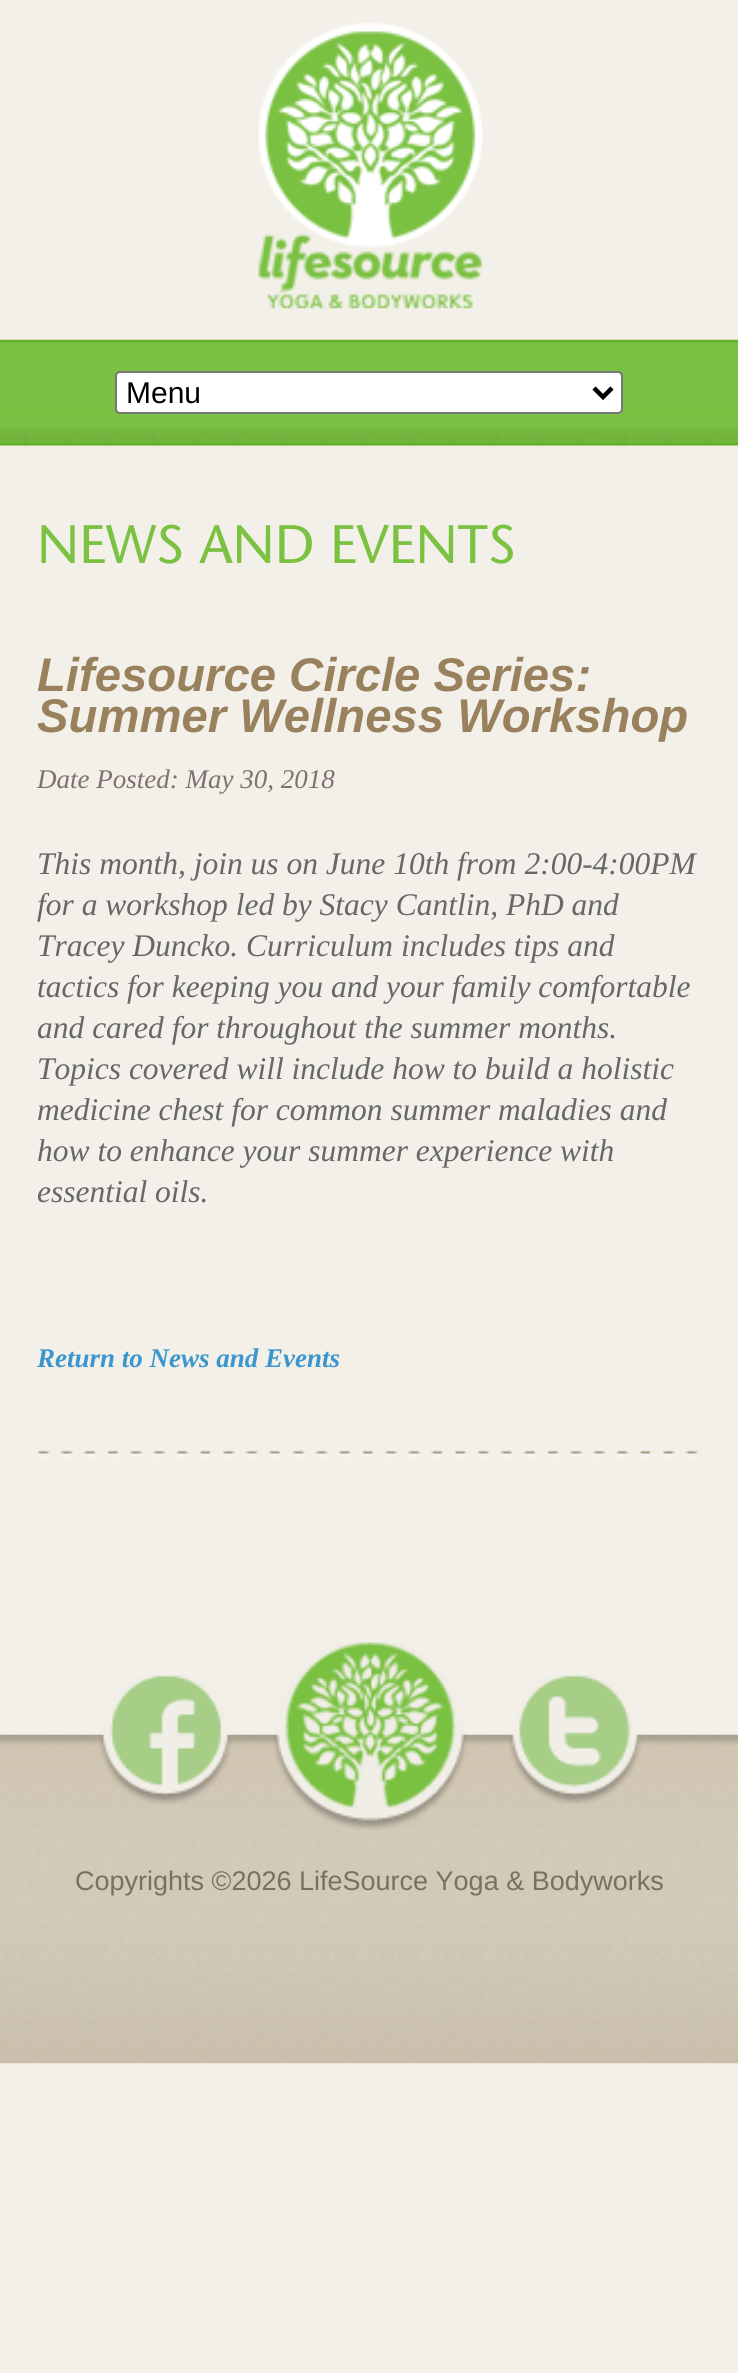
import math
import cairo

surface = cairo.ImageSurface(cairo.Format.RGB24, 738, 2373)
ctx = cairo.Context(surface)
options = cairo.FontOptions()
options.set_hint_metrics(cairo.HintMetrics.OFF)
options.set_hint_style(cairo.HintStyle.NONE)
ctx.set_font_options(options)
ctx.set_miter_limit(4)


def ink(r, g, b):
    ctx.set_source_rgb(r / 255, g / 255, b / 255)


def write(x, y, s, family, size, color, bold=False, italic=False):
    ctx.select_font_face(family, cairo.FontSlant.ITALIC if italic else cairo.FontSlant.NORMAL, cairo.FontWeight.BOLD if bold else cairo.FontWeight.NORMAL)
    ctx.set_font_size(size)
    ink(*color)
    ctx.move_to(x, y)
    ctx.show_text(s)


def round_path(x, y, w, h, r):
    ctx.new_sub_path()
    for i, (u, v) in enumerate([(x + w - r, y + h - r), (x + r, y + h - r), (x + r, y + r), (x + w - r, y + r)]):
        ctx.arc(u, v, r, i * math.pi / 2, (i + 1) * math.pi / 2)
    ctx.close_path()


def paste(path, x, y, w, h):
    ctx.save()
    ctx.set_source_surface(cairo.ImageSurface.create_from_png(path), x, y)
    ctx.rectangle(x, y, w, h)
    ctx.fill()
    ctx.restore()


s1 = dict(family="Liberation Sans", size=30, color=(0, 0, 0))
s2 = dict(family="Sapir", size=54, color=(123, 194, 67))
s3 = dict(family="Liberation Sans", size=47.25, color=(153, 129, 93), bold=True, italic=True)
s4 = dict(family="Liberation Serif", size=27, color=(128, 112, 112), italic=True)
s5 = dict(family="Liberation Serif", size=31.5, color=(103, 103, 103), italic=True)
s6 = dict(family="Liberation Serif", size=27, color=(58, 150, 204), bold=True, italic=True)
s7 = dict(family="Liberation Sans", size=27, color=(123, 112, 95))

ink(242, 240, 232)
ctx.paint()
paste("pic1.png", 258, 22, 226, 287)
paste("pic2.png", 0, 339, 738, 107)
ink(255, 255, 255)
round_path(116, 372, 506, 41, 4)
ctx.fill_preserve()
ink(118, 118, 118)
ctx.stroke()
ctx.new_path()
ctx.move_to(594, 388)
ctx.line_to(603, 397)
ctx.line_to(612, 388)
ink(0, 0, 0)
ctx.set_line_width(4.5)
ctx.stroke()
write(126, 403, "Menu", **s1)
write(37, 563, "NEWS AND EVENTS", **s2)
write(37, 691, "Lifesource Circle Series:", **s3)
write(37, 732, "Summer Wellness Workshop", **s3)
write(37, 788, "Date Posted: May 30, 2018", **s4)
write(37, 874, "This month, join us on June 10th from 2:00-4:00PM", **s5)
write(37, 915, "for a workshop led by Stacy Cantlin, PhD and", **s5)
write(37, 956, "Tracey Duncko. Curriculum includes tips and", **s5)
write(37, 997, "tactics for keeping you and your family comfortable", **s5)
write(37, 1038, "and cared for throughout the summer months.", **s5)
write(37, 1079, "Topics covered will include how to build a holistic", **s5)
write(37, 1120, "medicine chest for common summer maladies and", **s5)
write(37, 1161, "how to enhance your summer experience with", **s5)
write(37, 1202, "essential oils.", **s5)
write(37, 1367, "Return to News and Events", **s6)
paste("pic3.png", 37, 1450, 661, 8)
paste("pic4.png", 0, 1734, 738, 330)
paste("pic5.png", 99, 1675, 133, 130)
paste("pic6.png", 273, 1642, 195, 188)
paste("pic7.png", 509, 1675, 132, 129)
write(75, 1890, "Copyrights ©2026 LifeSource Yoga & Bodyworks", **s7)
surface.write_to_png("screenshot.png")
